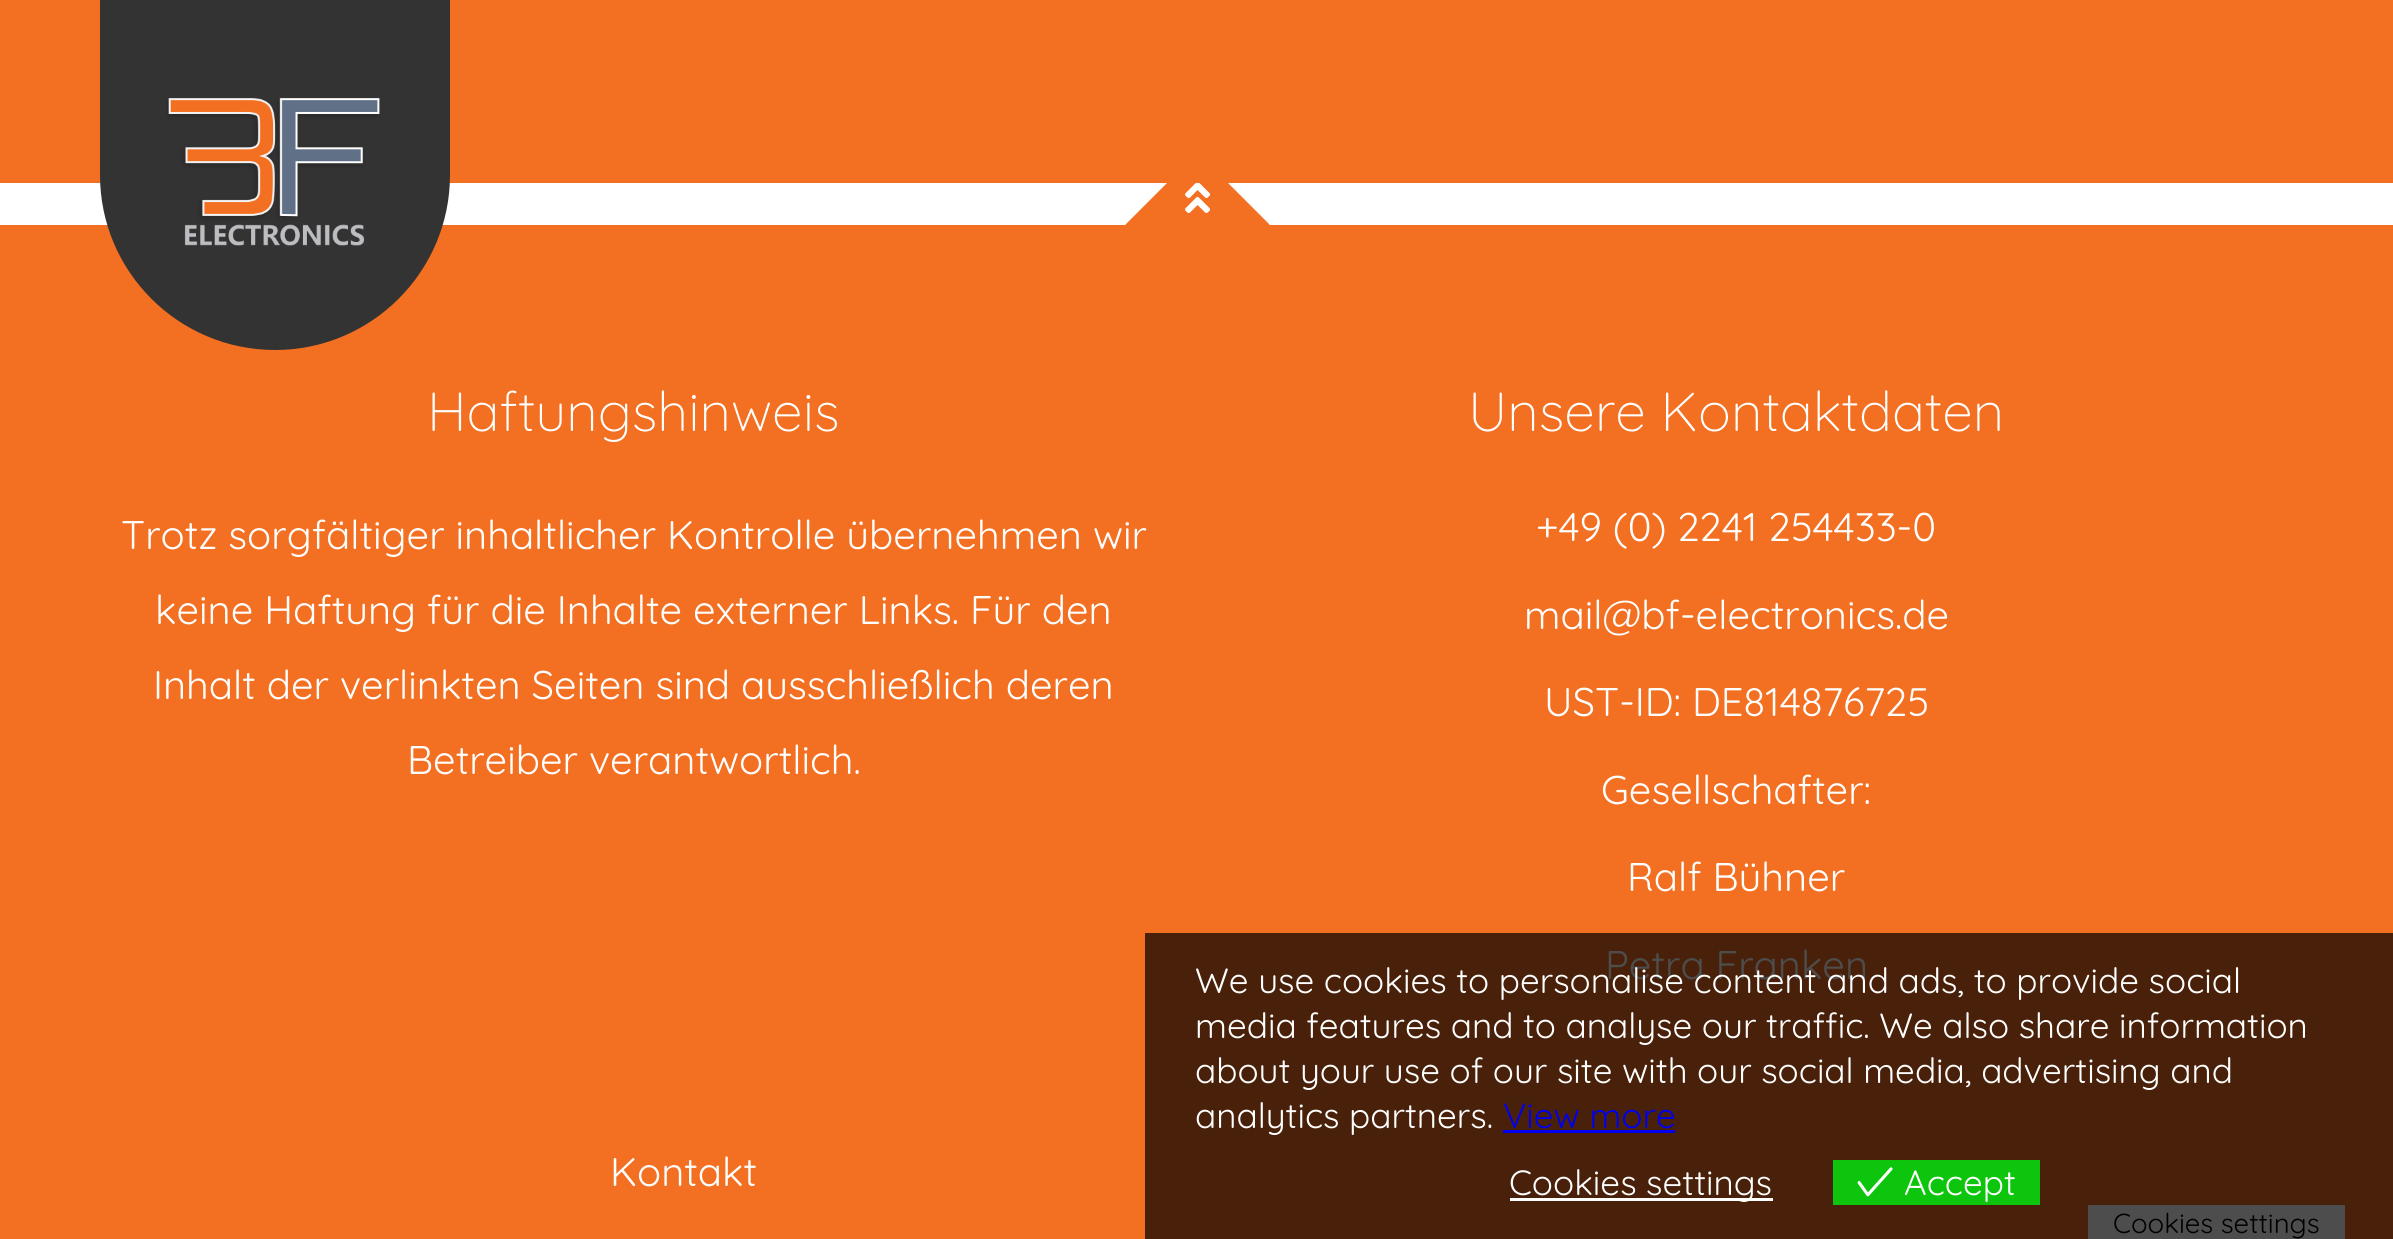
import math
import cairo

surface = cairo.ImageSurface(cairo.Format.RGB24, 2393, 1239)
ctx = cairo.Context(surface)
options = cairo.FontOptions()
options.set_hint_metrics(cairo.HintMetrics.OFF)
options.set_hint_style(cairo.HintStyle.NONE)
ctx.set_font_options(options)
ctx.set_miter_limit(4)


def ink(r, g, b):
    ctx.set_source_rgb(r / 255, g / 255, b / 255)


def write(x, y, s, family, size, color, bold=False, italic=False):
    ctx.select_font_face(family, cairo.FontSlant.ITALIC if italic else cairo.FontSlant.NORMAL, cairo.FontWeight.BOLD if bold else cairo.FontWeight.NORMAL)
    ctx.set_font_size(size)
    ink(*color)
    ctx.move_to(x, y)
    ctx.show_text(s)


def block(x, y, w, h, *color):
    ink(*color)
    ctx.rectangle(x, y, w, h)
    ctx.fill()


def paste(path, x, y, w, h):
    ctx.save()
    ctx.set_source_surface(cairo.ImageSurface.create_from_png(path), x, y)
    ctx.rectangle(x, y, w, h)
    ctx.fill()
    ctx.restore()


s1 = dict(family="Quicksand Light", size=55, color=(255, 255, 255))
s2 = dict(family="Quicksand", size=40, color=(255, 255, 255))
s3 = dict(family="Quicksand", size=40, color=(77, 77, 77))
s4 = dict(family="Quicksand", size=35, color=(255, 255, 255))
s5 = dict(family="Quicksand", size=35, color=(0, 0, 238))
s6 = dict(family="Quicksand", size=27.5, color=(0, 0, 0))

ink(255, 255, 255)
ctx.paint()
block(0, 225, 2393, 1014, 243, 111, 33)
ctx.new_path()
ctx.move_to(1215, 170)
ctx.line_to(1268, 223)
ctx.curve_to(1278, 233, 1278, 249, 1268, 259)
ctx.line_to(1215, 312)
ctx.curve_to(1205, 322, 1190, 322, 1180, 312)
ctx.line_to(1127, 259)
ctx.curve_to(1117, 249, 1117, 233, 1127, 223)
ctx.line_to(1180, 170)
ctx.curve_to(1190, 161, 1205, 161, 1215, 170)
ctx.close_path()
ctx.fill()
block(0, 0, 2393, 183, 243, 111, 33)
ink(51, 51, 51)
ctx.new_path()
ctx.move_to(100, 0)
ctx.line_to(450, 0)
ctx.line_to(450, 175)
ctx.curve_to(450, 271.5, 371.5, 350, 275, 350)
ctx.curve_to(178.5, 350, 100, 271.5, 100, 175)
ctx.close_path()
ctx.fill()
paste("pic1.png", 166, 98, 214, 148)
block(1145, 933, 1248, 306, 73, 33, 10)
paste("pic2.png", 1185, 183, 26, 30)
write(427, 431, "Haftungshinweis", **s1)
write(121, 549, "Trotz sorgfältiger inhaltlicher Kontrolle übernehmen wir", **s2)
write(155, 624, "keine Haftung für die Inhalte externer Links. Für den", **s2)
write(153, 699, "Inhalt der verlinkten Seiten sind ausschließlich deren", **s2)
write(407, 774, "Betreiber verantwortlich.", **s2)
write(1468, 431, "Unsere Kontaktdaten", **s1)
write(1536, 541, "+49 (0) 2241 254433-0", **s2)
write(1524, 629, "mail@bf-electronics.de", **s2)
write(1544, 716, "UST-ID: DE814876725", **s2)
write(1601, 804, "Gesellschafter:", **s2)
write(1627, 891, "Ralf Bühner", **s2)
write(1605, 979, "Petra Franken", **s3)
write(610, 1186, "Kontakt", **s2)
write(1195, 993, "We use cookies to personalise content and ads, to provide social", **s4)
write(1195, 1038, "media features and to analyse our traffic. We also share information", **s4)
write(1195, 1083, "about your use of our site with our social media, advertising and", **s4)
write(1195, 1128, "analytics partners.", **s4)
write(1503, 1128, "View more", **s5)
block(1503, 1130, 172, 3, 0, 0, 238)
block(1510, 1198, 263, 3, 255, 255, 255)
write(1509, 1195, "Cookies settings", **s4)
block(1833, 1160, 207, 45, 14, 197, 14)
paste("pic3.png", 1857, 1167, 36, 30)
write(1904, 1195, "Accept", **s4)
block(2088, 1205, 257, 34, 77, 77, 77)
write(2113, 1233, "Cookies settings", **s6)
surface.write_to_png("screenshot.png")
